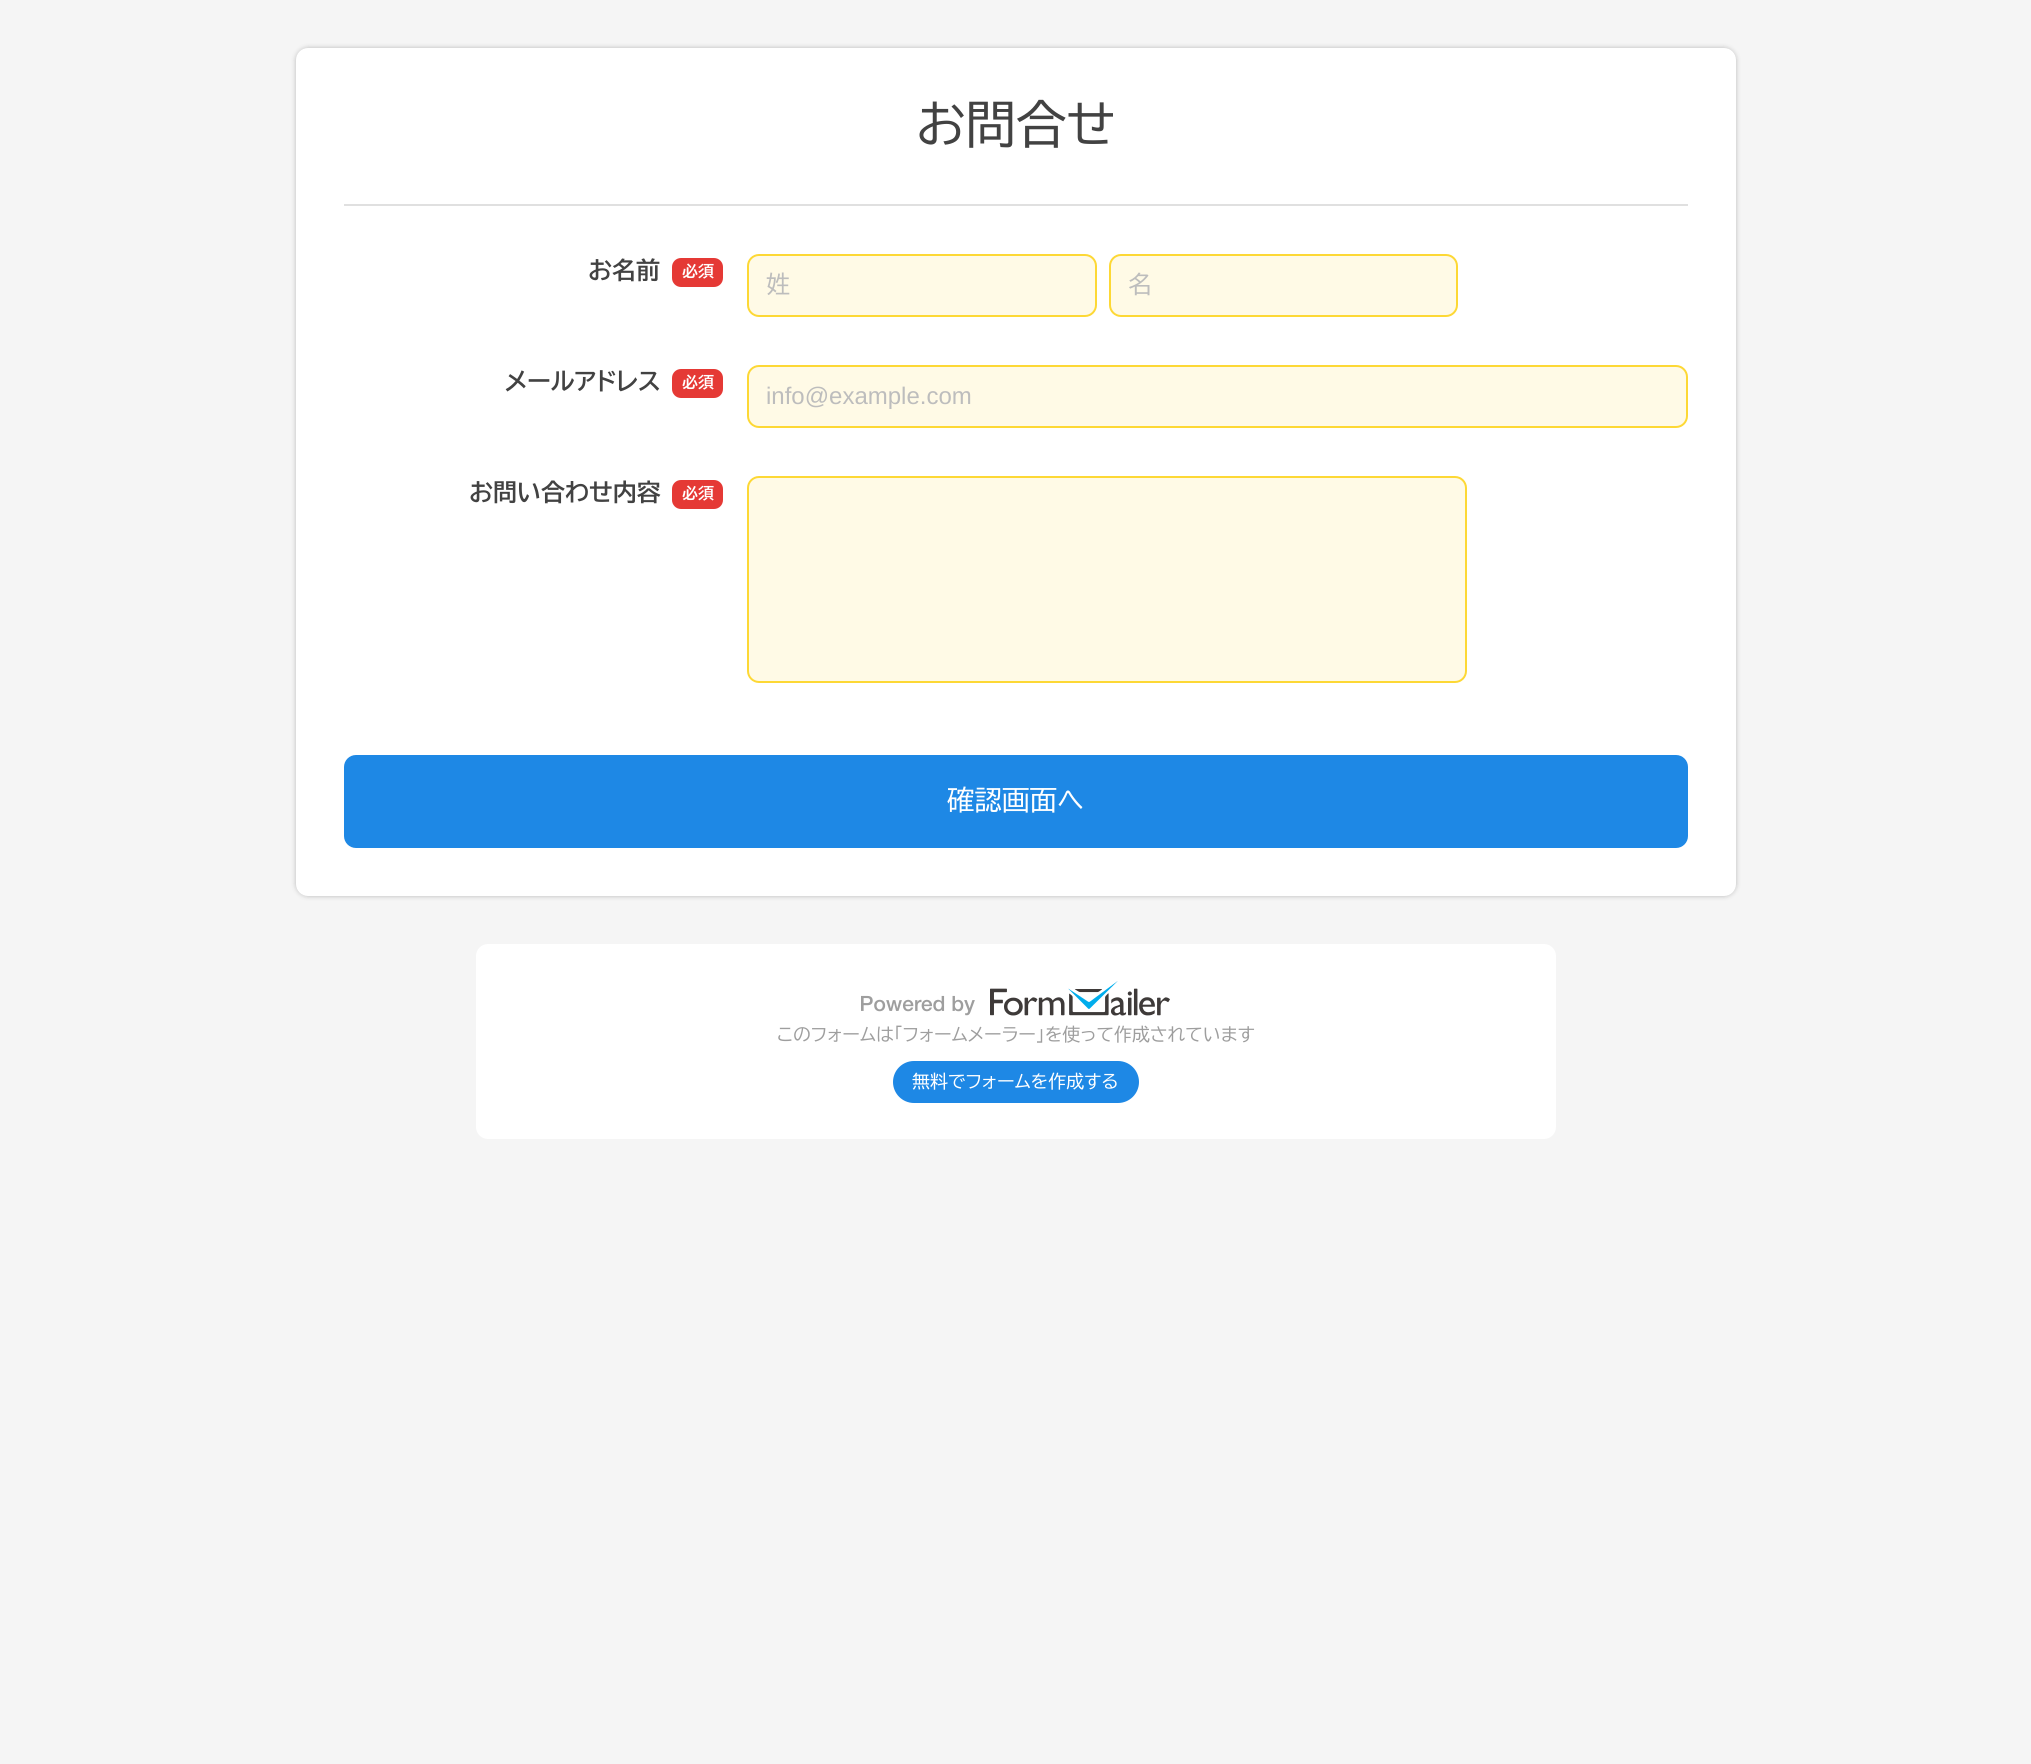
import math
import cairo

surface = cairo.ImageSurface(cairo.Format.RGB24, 2031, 1764)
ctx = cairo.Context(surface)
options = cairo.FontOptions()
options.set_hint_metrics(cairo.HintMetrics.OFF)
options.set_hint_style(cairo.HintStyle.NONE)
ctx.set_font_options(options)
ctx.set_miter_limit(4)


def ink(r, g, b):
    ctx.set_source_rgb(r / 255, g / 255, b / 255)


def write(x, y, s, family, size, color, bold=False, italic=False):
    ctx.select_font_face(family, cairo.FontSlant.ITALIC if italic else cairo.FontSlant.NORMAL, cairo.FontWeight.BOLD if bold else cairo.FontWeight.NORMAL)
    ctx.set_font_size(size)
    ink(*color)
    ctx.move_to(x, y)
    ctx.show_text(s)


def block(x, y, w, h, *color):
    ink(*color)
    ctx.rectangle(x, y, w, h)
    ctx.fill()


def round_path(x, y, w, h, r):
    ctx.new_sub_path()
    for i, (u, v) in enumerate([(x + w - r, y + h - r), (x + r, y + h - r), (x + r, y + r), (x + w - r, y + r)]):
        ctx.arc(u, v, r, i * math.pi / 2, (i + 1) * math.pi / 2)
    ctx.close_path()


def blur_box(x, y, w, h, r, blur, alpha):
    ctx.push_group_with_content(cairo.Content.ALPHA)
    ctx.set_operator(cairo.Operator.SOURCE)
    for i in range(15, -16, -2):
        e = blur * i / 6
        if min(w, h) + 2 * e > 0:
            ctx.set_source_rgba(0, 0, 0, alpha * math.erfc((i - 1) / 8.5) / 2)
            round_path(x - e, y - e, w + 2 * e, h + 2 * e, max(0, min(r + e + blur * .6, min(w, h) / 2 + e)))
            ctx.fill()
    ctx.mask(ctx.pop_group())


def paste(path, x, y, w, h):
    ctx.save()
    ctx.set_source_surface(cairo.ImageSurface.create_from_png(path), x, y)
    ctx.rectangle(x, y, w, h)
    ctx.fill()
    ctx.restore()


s1 = dict(family="BIZ UDPGothic", size=50.5, color=(66, 66, 66))
s2 = dict(family="BIZ UDPGothic", size=24, color=(66, 66, 66), bold=True)
s3 = dict(family="BIZ UDPGothic", size=16, color=(255, 255, 255), bold=True)
s4 = dict(family="BIZ UDPGothic", size=24, color=(189, 189, 189))
s5 = dict(family="Liberation Sans", size=24, color=(189, 189, 189))
s6 = dict(family="BIZ UDPGothic", size=27.5, color=(255, 255, 255))
s7 = dict(family="BIZ UDPGothic", size=18, color=(158, 158, 158))
s8 = dict(family="BIZ UDPGothic", size=18, color=(255, 255, 255))

ink(245, 245, 245)
ctx.paint()
ink(0, 0, 0)
blur_box(296, 48, 1440, 848, 12, 2.5, 0.25)
ink(255, 255, 255)
round_path(296, 48, 1440, 848, 12)
ctx.fill()
write(916, 143, "お問合せ", **s1)
block(344, 204, 1344, 2, 224, 224, 224)
write(588, 279, "お名前", **s2)
ink(229, 57, 53)
round_path(672, 258, 51, 29, 9)
ctx.fill()
write(682, 277, "必須", **s3)
ink(255, 250, 230)
round_path(748, 255, 348, 61, 11)
ctx.fill_preserve()
ink(253, 216, 53)
ctx.stroke()
write(766, 293, "姓", **s4)
ink(255, 250, 230)
round_path(1110, 255, 347, 61, 11)
ctx.fill_preserve()
ink(253, 216, 53)
ctx.stroke()
write(1128, 293, "名", **s4)
write(505, 390, "メールアドレス", **s2)
ink(229, 57, 53)
round_path(672, 369, 51, 29, 9)
ctx.fill()
write(682, 388, "必須", **s3)
ink(255, 250, 230)
round_path(748, 366, 939, 61, 11)
ctx.fill_preserve()
ink(253, 216, 53)
ctx.stroke()
write(766, 404, "info@example.com", **s5)
write(469, 501, "お問い合わせ内容", **s2)
ink(229, 57, 53)
round_path(672, 480, 51, 29, 9)
ctx.fill()
write(682, 499, "必須", **s3)
ink(255, 250, 230)
round_path(748, 477, 718, 205, 11)
ctx.fill_preserve()
ink(253, 216, 53)
ctx.stroke()
ink(30, 136, 229)
round_path(345, 756, 1342, 91, 11)
ctx.fill_preserve()
ctx.stroke()
write(947, 810, "確認画面へ", **s6)
round_path(476, 944, 1080, 195, 12)
ctx.fill()
paste("pic1.png", 861, 981, 309, 35)
write(777, 1041, "このフォームは「フォームメーラー」を使って作成されています", **s7)
ink(30, 136, 229)
round_path(894, 1062, 244, 40, 20)
ctx.fill_preserve()
ctx.stroke()
write(912, 1088, "無料でフォームを作成する", **s8)
surface.write_to_png("screenshot.png")
